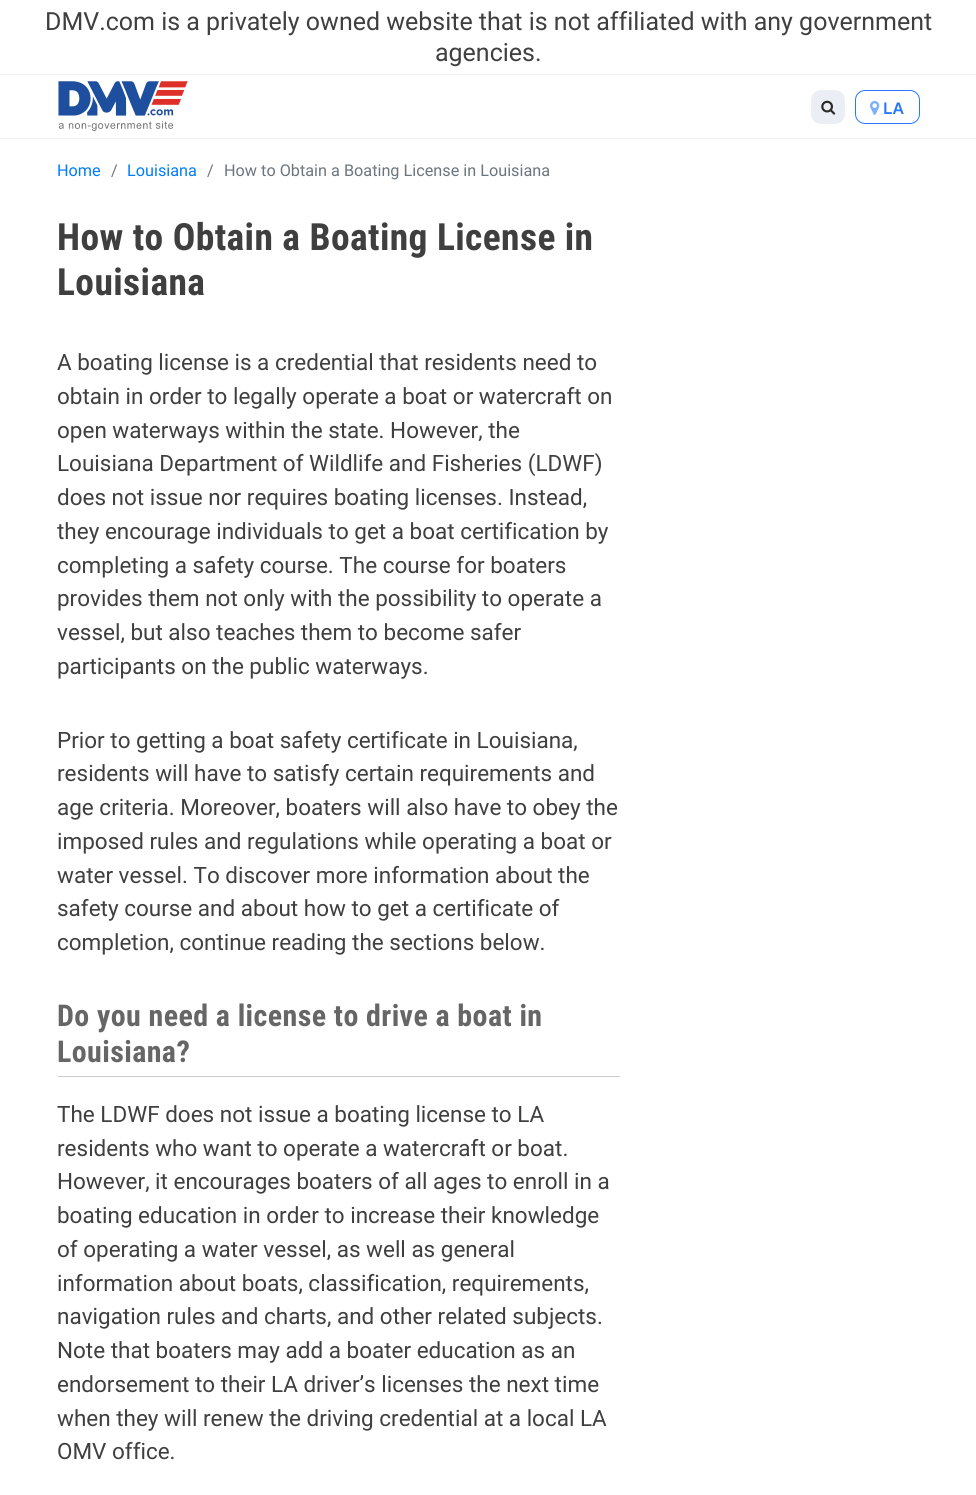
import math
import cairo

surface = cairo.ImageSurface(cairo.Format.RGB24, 976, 1495)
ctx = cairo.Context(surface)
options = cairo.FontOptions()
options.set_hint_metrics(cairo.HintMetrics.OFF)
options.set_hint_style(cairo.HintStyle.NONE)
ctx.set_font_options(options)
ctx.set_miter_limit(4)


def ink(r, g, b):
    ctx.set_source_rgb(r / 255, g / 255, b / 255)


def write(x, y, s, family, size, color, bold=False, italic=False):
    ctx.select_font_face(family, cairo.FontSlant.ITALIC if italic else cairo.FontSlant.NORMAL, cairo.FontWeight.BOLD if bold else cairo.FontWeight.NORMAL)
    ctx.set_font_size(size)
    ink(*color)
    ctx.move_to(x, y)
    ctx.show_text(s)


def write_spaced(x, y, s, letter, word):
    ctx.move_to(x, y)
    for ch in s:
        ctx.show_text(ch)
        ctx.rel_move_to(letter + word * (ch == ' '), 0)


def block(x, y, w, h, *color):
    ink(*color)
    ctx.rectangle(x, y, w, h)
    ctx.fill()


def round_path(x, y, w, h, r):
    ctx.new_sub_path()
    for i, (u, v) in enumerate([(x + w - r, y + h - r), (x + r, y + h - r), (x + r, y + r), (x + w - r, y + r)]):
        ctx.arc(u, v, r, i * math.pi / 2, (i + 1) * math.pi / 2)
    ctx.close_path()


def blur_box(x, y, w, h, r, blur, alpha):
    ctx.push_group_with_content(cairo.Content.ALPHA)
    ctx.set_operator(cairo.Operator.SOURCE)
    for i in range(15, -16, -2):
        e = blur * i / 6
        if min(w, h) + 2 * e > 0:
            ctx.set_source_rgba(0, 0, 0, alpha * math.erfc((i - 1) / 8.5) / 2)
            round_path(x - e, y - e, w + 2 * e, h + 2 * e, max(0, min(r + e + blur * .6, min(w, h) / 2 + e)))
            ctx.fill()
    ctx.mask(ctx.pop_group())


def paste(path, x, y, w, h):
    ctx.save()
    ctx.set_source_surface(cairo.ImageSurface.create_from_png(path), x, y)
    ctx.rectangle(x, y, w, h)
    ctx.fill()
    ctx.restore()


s1 = dict(family="Roboto", size=25, color=(63, 63, 63))
s2 = dict(family="Geist SemiBold", size=16.25, color=(38, 121, 255))
s3 = dict(family="Roboto", size=16.25, color=(0, 124, 255))
s4 = dict(family="Roboto", size=16.25, color=(108, 117, 125))
s5 = dict(family="Roboto", size=22.5, color=(63, 63, 63))

ink(255, 255, 255)
ctx.paint()
write(45, 30, "DMV.com is a privately owned website that is not affiliated with any government", **s1)
write(435, 61, "agencies.", **s1)
ctx.save()
ctx.set_fill_rule(cairo.FillRule.EVEN_ODD)
ctx.new_path()
ctx.move_to(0, 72)
ctx.line_to(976, 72)
ctx.line_to(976, 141)
ctx.line_to(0, 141)
ctx.close_path()
ctx.move_to(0, 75)
ctx.line_to(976, 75)
ctx.line_to(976, 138)
ctx.line_to(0, 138)
ctx.close_path()
ctx.clip()
ink(0, 0, 0)
blur_box(0, 75, 976, 63, 0, 0.5, 0.2)
ctx.restore()
paste("pic1.png", 58, 81, 130, 50)
ink(235, 238, 244)
round_path(811, 90, 34, 34, 10)
ctx.fill()
paste("pic2.png", 821, 100, 15, 15)
round_path(855.5, 90.5, 64, 33, 9.5)
ink(38, 121, 255)
ctx.set_line_width(1)
ctx.stroke()
paste("pic3.png", 870, 101, 10, 14)
write(883, 114, "LA", **s2)
write(57, 176, "Home", **s3)
write(111, 176, "/", **s4)
write(127, 176, "Louisiana", **s3)
write(207, 176, "/", **s4)
write(224, 176, "How to Obtain a Boating License in Louisiana", **s4)
ctx.select_font_face("Roboto Condensed", cairo.FontSlant.NORMAL, cairo.FontWeight.BOLD)
ctx.set_font_size(37.5)
ink(63, 63, 63)
write_spaced(57, 250, "How to Obtain a Boating License in", 0.4, 0)
write_spaced(57, 295, "Louisiana", 0.4, 0)
write(57, 370, "A boating license is a credential that residents need to", **s5)
write(57, 404, "obtain in order to legally operate a boat or watercraft on", **s5)
write(57, 438, "open waterways within the state. However, the", **s5)
write(57, 471, "Louisiana Department of Wildlife and Fisheries (LDWF)", **s5)
write(57, 505, "does not issue nor requires boating licenses. Instead,", **s5)
write(57, 539, "they encourage individuals to get a boat certification by", **s5)
write(57, 573, "completing a safety course. The course for boaters", **s5)
write(57, 606, "provides them not only with the possibility to operate a", **s5)
write(57, 640, "vessel, but also teaches them to become safer", **s5)
write(57, 674, "participants on the public waterways.", **s5)
write(57, 748, "Prior to getting a boat safety certificate in Louisiana,", **s5)
write(57, 781, "residents will have to satisfy certain requirements and", **s5)
write(57, 815, "age criteria. Moreover, boaters will also have to obey the", **s5)
write(57, 849, "imposed rules and regulations while operating a boat or", **s5)
write(57, 883, "water vessel. To discover more information about the", **s5)
write(57, 916, "safety course and about how to get a certificate of", **s5)
write(57, 950, "completion, continue reading the sections below.", **s5)
block(58, 1076, 562, 1, 204, 204, 204)
ctx.select_font_face("Roboto Condensed", cairo.FontSlant.NORMAL, cairo.FontWeight.BOLD)
ctx.set_font_size(30)
ink(102, 102, 102)
write_spaced(57, 1026, "Do you need a license to drive a boat in", 0.4, 0)
write_spaced(57, 1062, "Louisiana?", 0.4, 0)
write(57, 1122, "The LDWF does not issue a boating license to LA", **s5)
write(57, 1156, "residents who want to operate a watercraft or boat.", **s5)
write(57, 1189, "However, it encourages boaters of all ages to enroll in a", **s5)
write(57, 1223, "boating education in order to increase their knowledge", **s5)
write(57, 1257, "of operating a water vessel, as well as general", **s5)
write(57, 1291, "information about boats, classification, requirements,", **s5)
write(57, 1324, "navigation rules and charts, and other related subjects.", **s5)
write(57, 1358, "Note that boaters may add a boater education as an", **s5)
write(57, 1392, "endorsement to their LA driver’s licenses the next time", **s5)
write(57, 1426, "when they will renew the driving credential at a local LA", **s5)
write(57, 1459, "OMV office.", **s5)
surface.write_to_png("screenshot.png")
